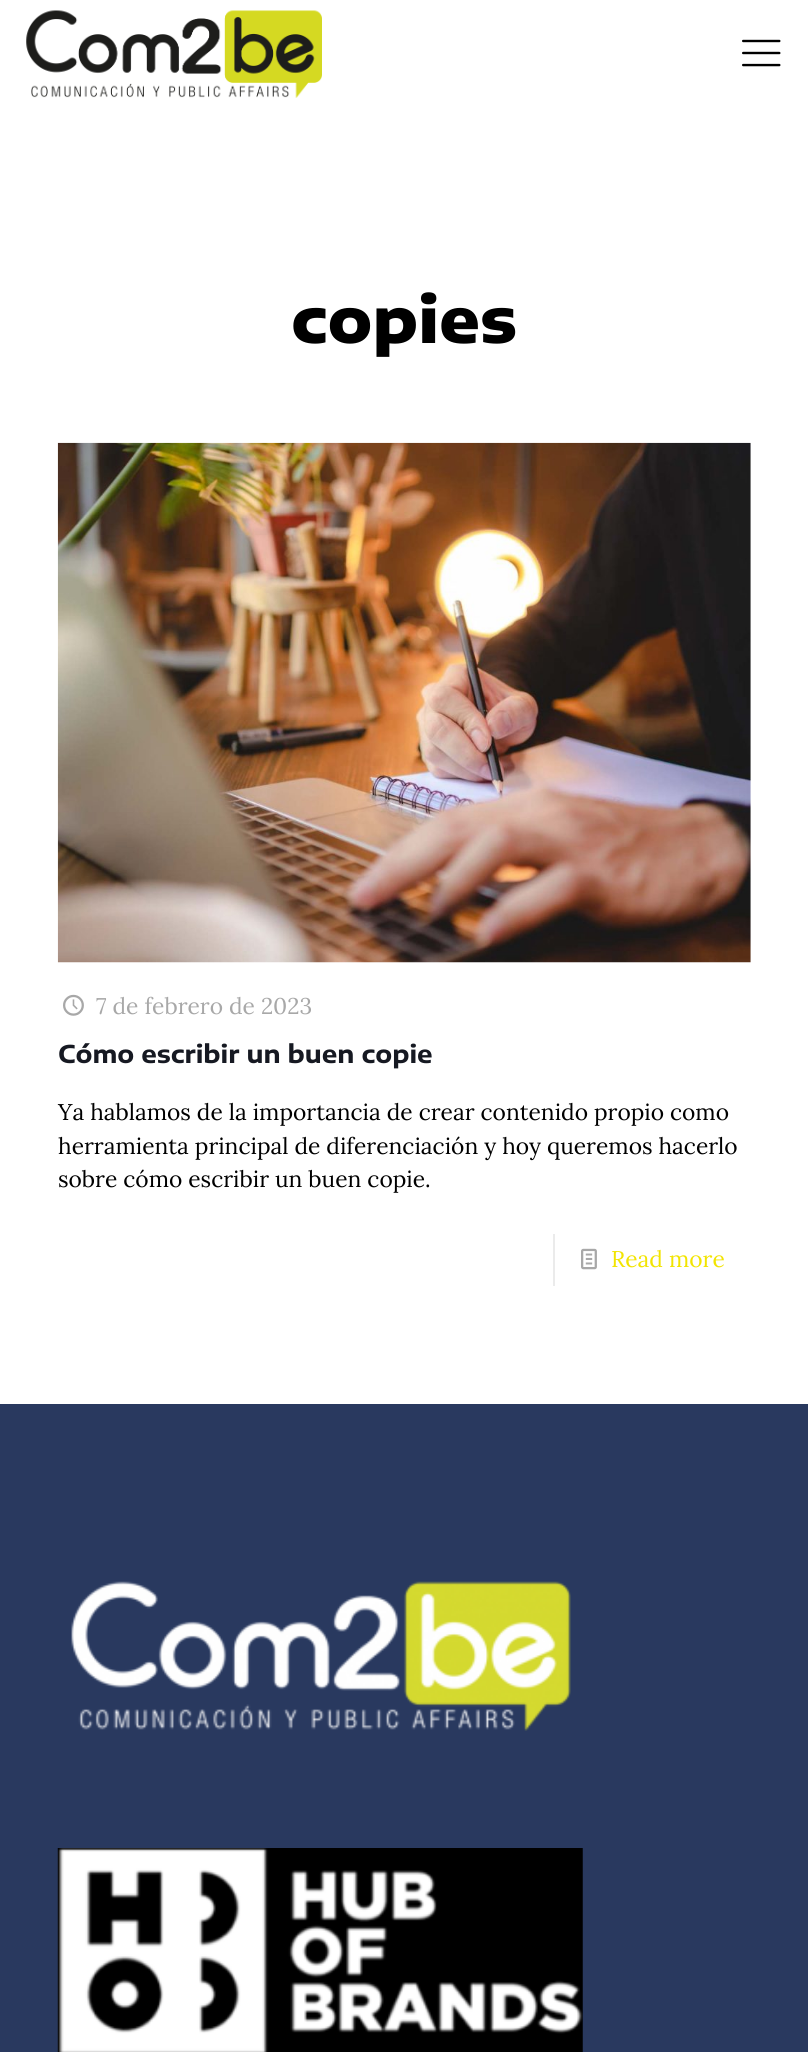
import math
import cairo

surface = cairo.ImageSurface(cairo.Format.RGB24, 808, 2052)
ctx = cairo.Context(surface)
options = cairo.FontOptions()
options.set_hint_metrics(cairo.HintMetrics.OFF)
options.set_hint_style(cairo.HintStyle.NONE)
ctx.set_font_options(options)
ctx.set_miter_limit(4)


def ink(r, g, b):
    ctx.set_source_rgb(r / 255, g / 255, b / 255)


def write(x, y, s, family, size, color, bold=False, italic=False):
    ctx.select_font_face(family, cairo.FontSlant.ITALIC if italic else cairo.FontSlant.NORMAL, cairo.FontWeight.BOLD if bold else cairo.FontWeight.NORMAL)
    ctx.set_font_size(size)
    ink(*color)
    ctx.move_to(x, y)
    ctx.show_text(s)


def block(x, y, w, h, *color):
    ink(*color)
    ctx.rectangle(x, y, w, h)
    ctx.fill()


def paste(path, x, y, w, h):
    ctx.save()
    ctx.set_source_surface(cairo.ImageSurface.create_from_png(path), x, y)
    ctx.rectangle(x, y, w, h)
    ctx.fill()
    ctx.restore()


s1 = dict(family="Encode Sans Expanded ExtraBold", size=63, color=(0, 0, 0))
s2 = dict(family="Lora", size=22.75, color=(168, 168, 168))
s3 = dict(family="Encode Sans Expanded", size=24.5, color=(22, 25, 34), bold=True)
s4 = dict(family="Lora", size=22.75, color=(0, 0, 0))
s5 = dict(family="Lora", size=22.75, color=(242, 228, 0))

ink(255, 255, 255)
ctx.paint()
paste("pic1.png", 26, 10, 296, 88)
paste("pic2.png", 742, 39, 39, 28)
write(291, 343, "copies", **s1)
paste("pic3.png", 57, 442, 694, 521)
paste("pic4.png", 63, 994, 21, 22)
write(96, 1014, "7 de febrero de 2023", **s2)
write(58, 1063, "Cómo escribir un buen copie", **s3)
write(58, 1120, "Ya hablamos de la importancia de crear contenido propio como", **s4)
write(58, 1154, "herramienta principal de diferenciación y hoy queremos hacerlo", **s4)
write(58, 1187, "sobre cómo escribir un buen copie.", **s4)
block(553, 1234, 2, 52, 235, 235, 235)
paste("pic5.png", 581, 1248, 16, 22)
write(611, 1267, "Read more", **s5)
block(0, 1404, 808, 648, 41, 57, 95)
paste("pic6.png", 71, 1581, 500, 150)
paste("pic7.png", 57, 1848, 526, 204)
surface.write_to_png("screenshot.png")
